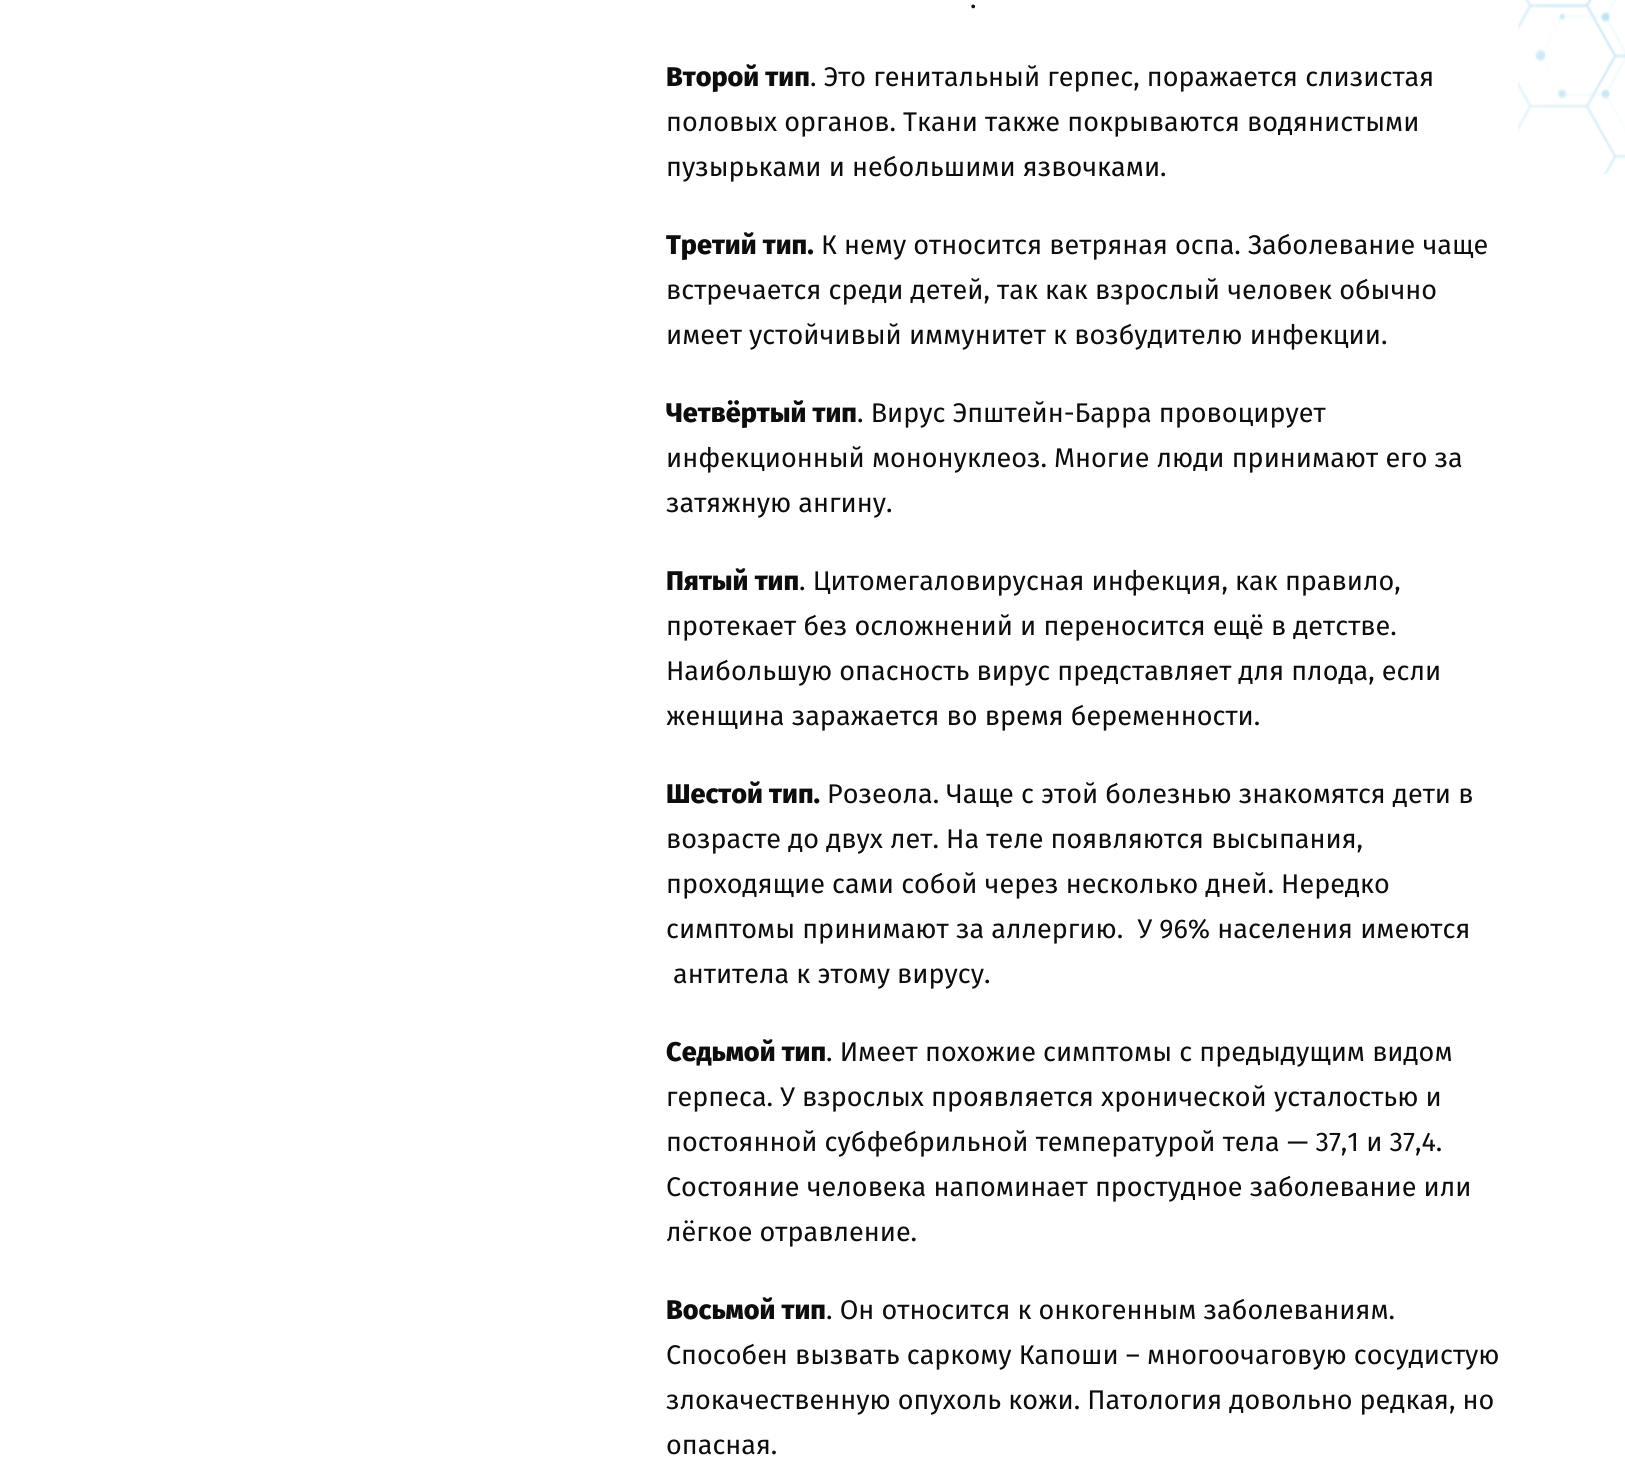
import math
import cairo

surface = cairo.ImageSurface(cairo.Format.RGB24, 1625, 1469)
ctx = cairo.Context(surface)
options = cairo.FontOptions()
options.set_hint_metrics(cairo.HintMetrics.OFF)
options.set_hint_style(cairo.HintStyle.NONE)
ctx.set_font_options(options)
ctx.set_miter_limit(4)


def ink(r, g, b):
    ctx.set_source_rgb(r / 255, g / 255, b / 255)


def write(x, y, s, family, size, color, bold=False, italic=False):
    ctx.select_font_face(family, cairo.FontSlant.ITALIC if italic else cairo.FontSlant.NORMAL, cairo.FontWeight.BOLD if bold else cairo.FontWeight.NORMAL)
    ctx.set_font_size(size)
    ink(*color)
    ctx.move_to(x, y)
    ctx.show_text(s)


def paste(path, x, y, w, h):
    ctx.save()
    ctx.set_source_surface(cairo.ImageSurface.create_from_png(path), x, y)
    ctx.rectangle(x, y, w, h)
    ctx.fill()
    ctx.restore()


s1 = dict(family="Fira Sans", size=27, color=(13, 13, 13))
s2 = dict(family="Fira Sans ExtraBold", size=27, color=(13, 13, 13))

ink(255, 255, 255)
ctx.paint()
write(970, 8, ".", **s1)
write(666, 86, "Второй тип", **s2)
write(810, 86, ". Это генитальный герпес, поражается слизистая", **s1)
write(666, 131, "половых органов. Ткани также покрываются водянистыми", **s1)
write(666, 176, "пузырьками и небольшими язвочками.", **s1)
write(666, 254, "Третий тип.", **s2)
write(821, 254, "К нему относится ветряная оспа. Заболевание чаще", **s1)
write(666, 299, "встречается среди детей, так как взрослый человек обычно", **s1)
write(666, 344, "имеет устойчивый иммунитет к возбудителю инфекции.", **s1)
write(666, 422, "Четвёртый тип", **s2)
write(857, 422, ". Вирус Эпштейн-Барра провоцирует", **s1)
write(666, 467, "инфекционный мононуклеоз. Многие люди принимают его за", **s1)
write(666, 512, "затяжную ангину.", **s1)
write(666, 590, "Пятый тип", **s2)
write(799, 590, ". Цитомегаловирусная инфекция, как правило,", **s1)
write(666, 635, "протекает без осложнений и переносится ещё в детстве.", **s1)
write(666, 680, "Наибольшую опасность вирус представляет для плода, если", **s1)
write(666, 725, "женщина заражается во время беременности.", **s1)
write(666, 803, "Шестой тип.", **s2)
write(827, 803, "Розеола. Чаще с этой болезнью знакомятся дети в", **s1)
write(666, 848, "возрасте до двух лет. На теле появляются высыпания,", **s1)
write(666, 893, "проходящие сами собой через несколько дней. Нередко", **s1)
write(666, 938, "симптомы принимают за аллергию.  У 96% населения имеются", **s1)
write(673, 983, "антитела к этому вирусу.", **s1)
write(666, 1061, "Седьмой тип", **s2)
write(826, 1061, ". Имеет похожие симптомы с предыдущим видом", **s1)
write(666, 1106, "герпеса. У взрослых проявляется хронической усталостью и", **s1)
write(666, 1151, "постоянной субфебрильной температурой тела — 37,1 и 37,4.", **s1)
write(666, 1196, "Состояние человека напоминает простудное заболевание или", **s1)
write(666, 1241, "лёгкое отравление.", **s1)
write(666, 1319, "Восьмой тип", **s2)
write(826, 1319, ". Он относится к онкогенным заболеваниям.", **s1)
write(666, 1364, "Способен вызвать саркому Капоши – многоочаговую сосудистую", **s1)
write(666, 1409, "злокачественную опухоль кожи. Патология довольно редкая, но", **s1)
write(666, 1454, "опасная.", **s1)
paste("pic1.png", 1518, 0, 107, 174)
surface.write_to_png("screenshot.png")
